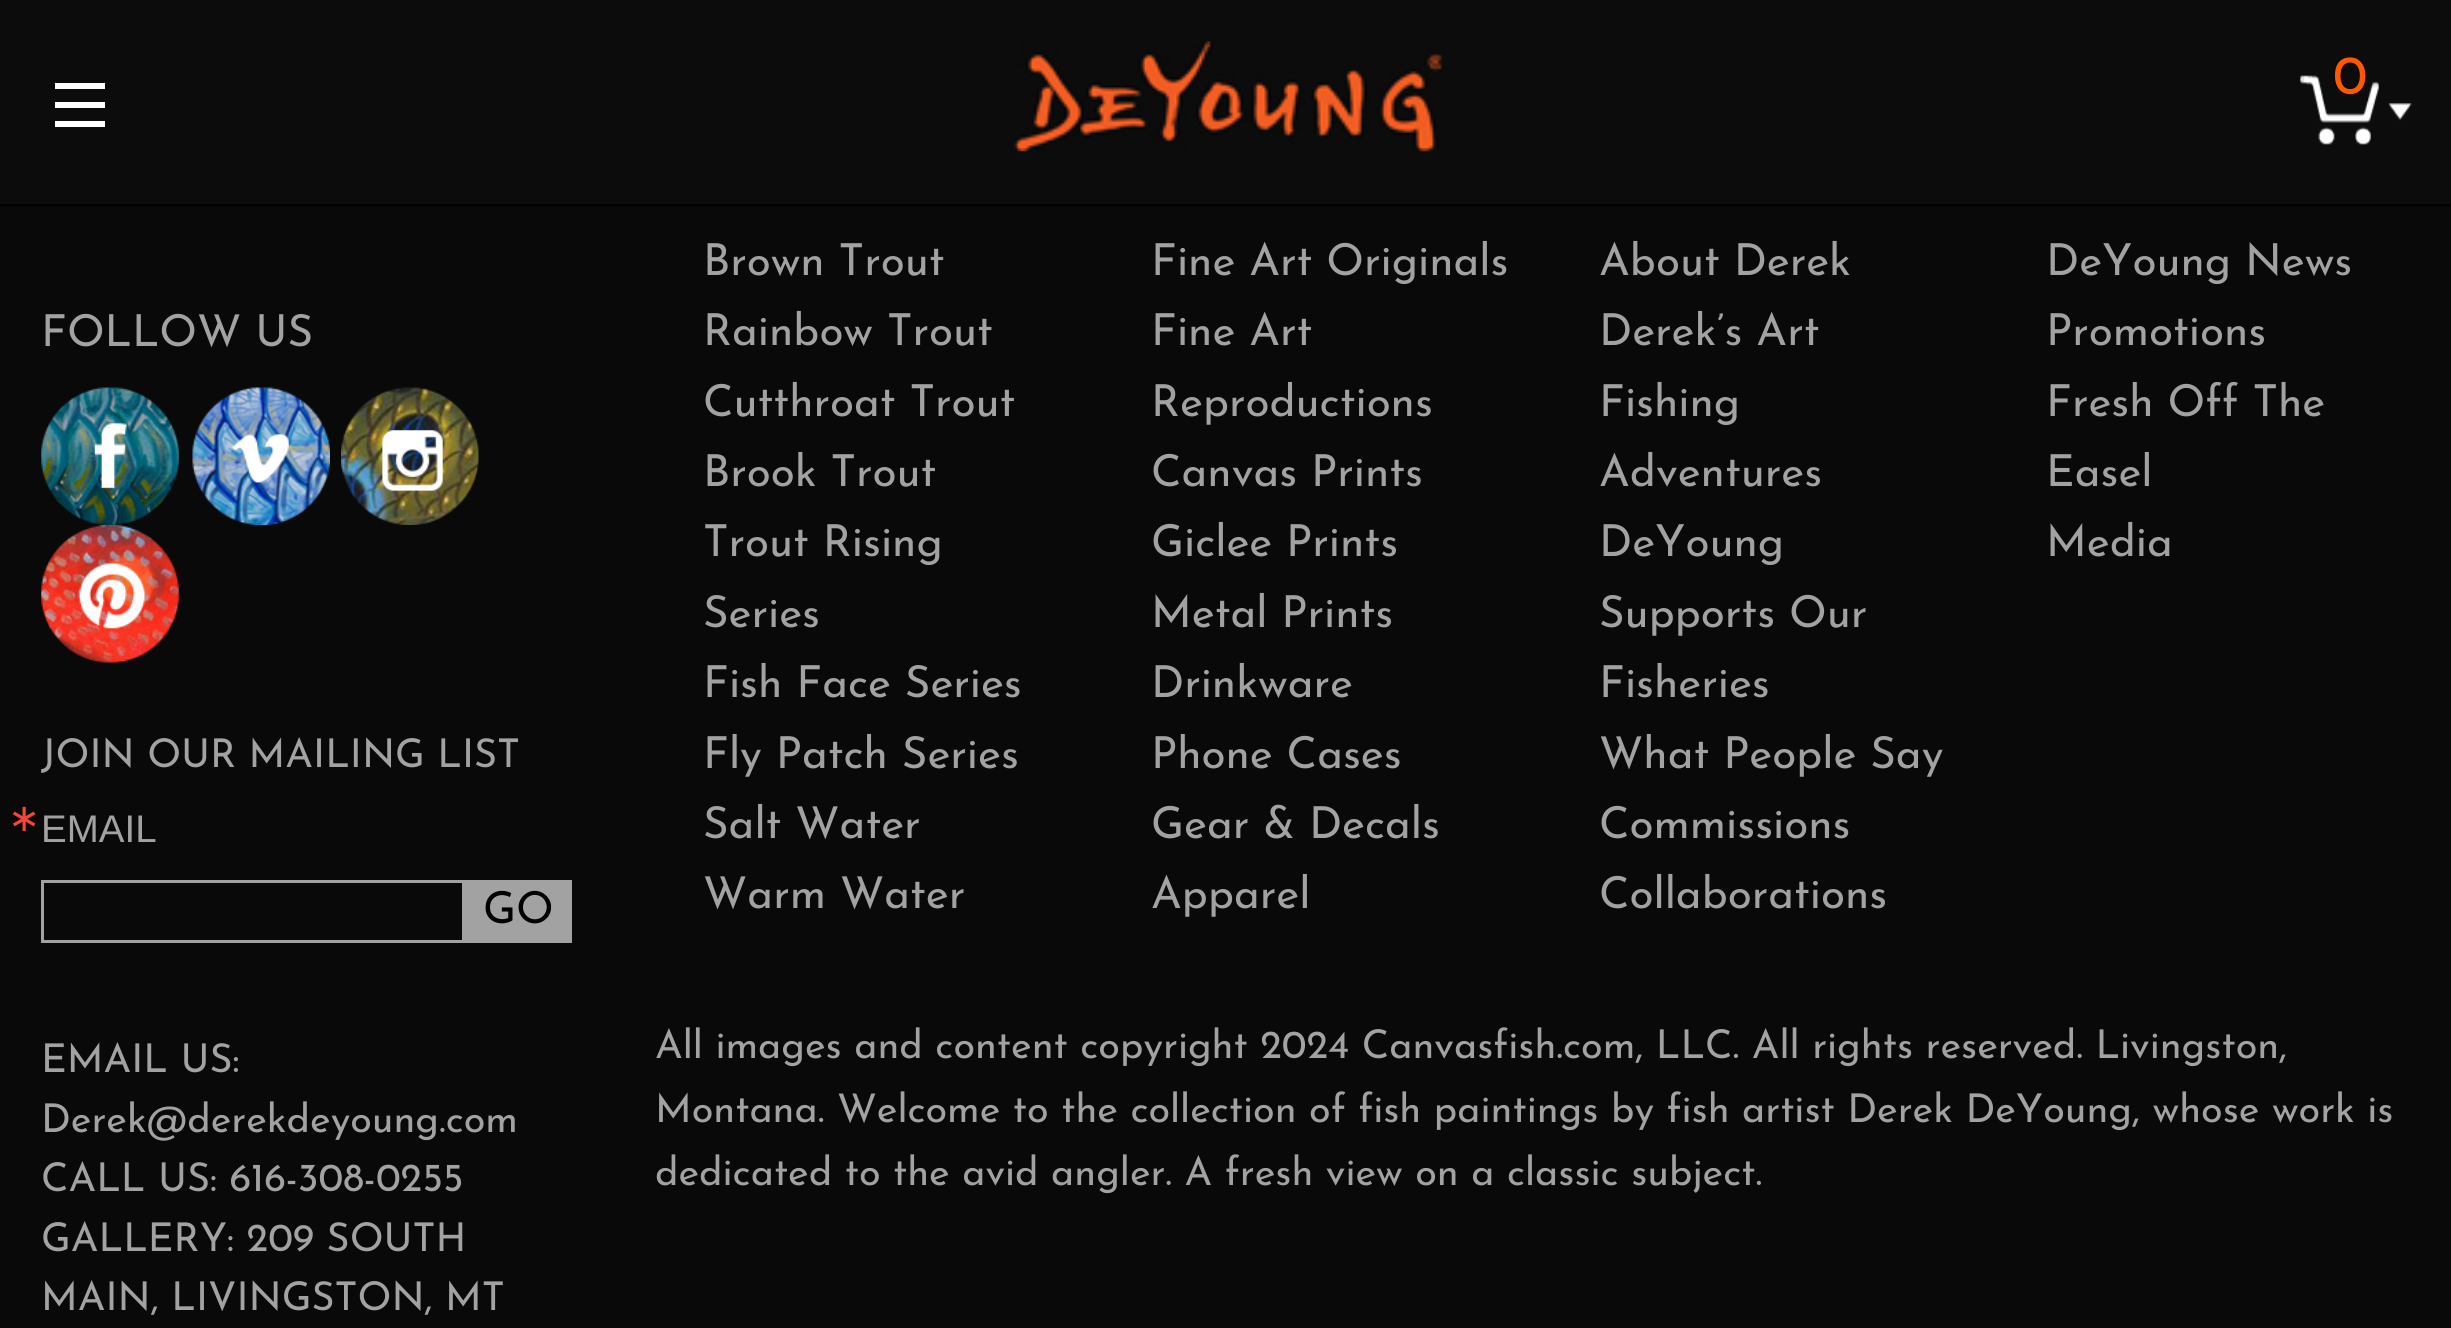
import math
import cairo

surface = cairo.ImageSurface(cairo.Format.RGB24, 2451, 1328)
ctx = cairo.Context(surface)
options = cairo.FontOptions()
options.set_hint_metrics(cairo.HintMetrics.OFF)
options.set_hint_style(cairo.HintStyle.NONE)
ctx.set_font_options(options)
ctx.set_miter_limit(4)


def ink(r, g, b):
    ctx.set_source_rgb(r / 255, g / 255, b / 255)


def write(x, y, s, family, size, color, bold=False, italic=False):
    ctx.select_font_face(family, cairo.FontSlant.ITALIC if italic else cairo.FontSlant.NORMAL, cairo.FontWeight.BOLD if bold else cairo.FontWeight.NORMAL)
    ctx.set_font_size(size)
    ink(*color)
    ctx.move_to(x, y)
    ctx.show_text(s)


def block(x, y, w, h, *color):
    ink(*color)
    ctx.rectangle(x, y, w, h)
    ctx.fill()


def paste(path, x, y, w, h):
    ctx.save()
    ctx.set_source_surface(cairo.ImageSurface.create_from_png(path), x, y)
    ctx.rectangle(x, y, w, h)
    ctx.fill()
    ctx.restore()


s1 = dict(family="Josefin Sans Thin", size=55, color=(255, 89, 0))
s2 = dict(family="Josefin Sans Thin", size=44, color=(162, 162, 162))
s3 = dict(family="Josefin Sans Thin", size=39.6, color=(162, 162, 162))
s4 = dict(family="DejaVu Sans", size=38.5, color=(245, 70, 59))
s5 = dict(family="Liberation Sans", size=38.5, color=(162, 162, 162))
s6 = dict(family="Josefin Sans Thin", size=44, color=(0, 0, 0))

ink(9, 9, 9)
ctx.paint()
block(0, 0, 2451, 204, 12, 12, 12)
block(55, 121, 50, 6, 255, 255, 255)
block(55, 102, 50, 6, 255, 255, 255)
block(55, 83, 50, 6, 255, 255, 255)
paste("pic1.png", 1014, 41, 428, 111)
paste("pic2.png", 2300, 75, 112, 70)
write(2333, 94, "0", **s1)
block(0, 204, 2451, 2, 1, 1, 1)
write(41, 346, "FOLLOW US", **s2)
paste("pic3.png", 41, 387, 138, 138)
paste("pic4.png", 192, 387, 138, 138)
paste("pic5.png", 341, 387, 138, 138)
paste("pic6.png", 41, 525, 138, 138)
write(41, 767, "JOIN OUR MAILING LIST", **s3)
write(8, 831, "∗", **s4)
write(41, 842, "EMAIL", **s5)
ctx.rectangle(42.5, 881.5, 421, 60)
ctx.set_line_width(3)
ctx.stroke()
block(465, 880, 107, 63, 162, 162, 162)
write(483, 923, "GO", **s6)
write(41, 1072, "EMAIL US:", **s3)
write(41, 1132, "Derek@derekdeyoung.com", **s3)
write(41, 1191, "CALL US: 616-308-0255", **s3)
write(41, 1251, "GALLERY: 209 SOUTH", **s3)
write(41, 1310, "MAIN, LIVINGSTON, MT", **s3)
write(703, 275, "Brown Trout", **s2)
write(703, 345, "Rainbow Trout", **s2)
write(703, 416, "Cutthroat Trout", **s2)
write(703, 486, "Brook Trout", **s2)
write(703, 556, "Trout Rising", **s2)
write(703, 627, "Series", **s2)
write(703, 697, "Fish Face Series", **s2)
write(703, 768, "Fly Patch Series", **s2)
write(703, 838, "Salt Water", **s2)
write(703, 908, "Warm Water", **s2)
write(1151, 275, "Fine Art Originals", **s2)
write(1151, 345, "Fine Art", **s2)
write(1151, 416, "Reproductions", **s2)
write(1151, 486, "Canvas Prints", **s2)
write(1151, 556, "Giclee Prints", **s2)
write(1151, 627, "Metal Prints", **s2)
write(1151, 697, "Drinkware", **s2)
write(1151, 768, "Phone Cases", **s2)
write(1151, 838, "Gear & Decals", **s2)
write(1151, 908, "Apparel", **s2)
write(1599, 275, "About Derek", **s2)
write(1599, 345, "Derek’s Art", **s2)
write(1599, 416, "Fishing", **s2)
write(1599, 486, "Adventures", **s2)
write(1599, 556, "DeYoung", **s2)
write(1599, 627, "Supports Our", **s2)
write(1599, 697, "Fisheries", **s2)
write(1599, 768, "What People Say", **s2)
write(1599, 838, "Commissions", **s2)
write(1599, 908, "Collaborations", **s2)
write(2046, 275, "DeYoung News", **s2)
write(2046, 345, "Promotions", **s2)
write(2046, 416, "Fresh Off The", **s2)
write(2046, 486, "Easel", **s2)
write(2046, 556, "Media", **s2)
write(655, 1058, "All images and content copyright 2024 Canvasfish.com, LLC. All rights reserved. Livingston,", **s3)
write(655, 1122, "Montana. Welcome to the collection of fish paintings by fish artist Derek DeYoung, whose work is", **s3)
write(655, 1185, "dedicated to the avid angler. A fresh view on a classic subject.", **s3)
surface.write_to_png("screenshot.png")
